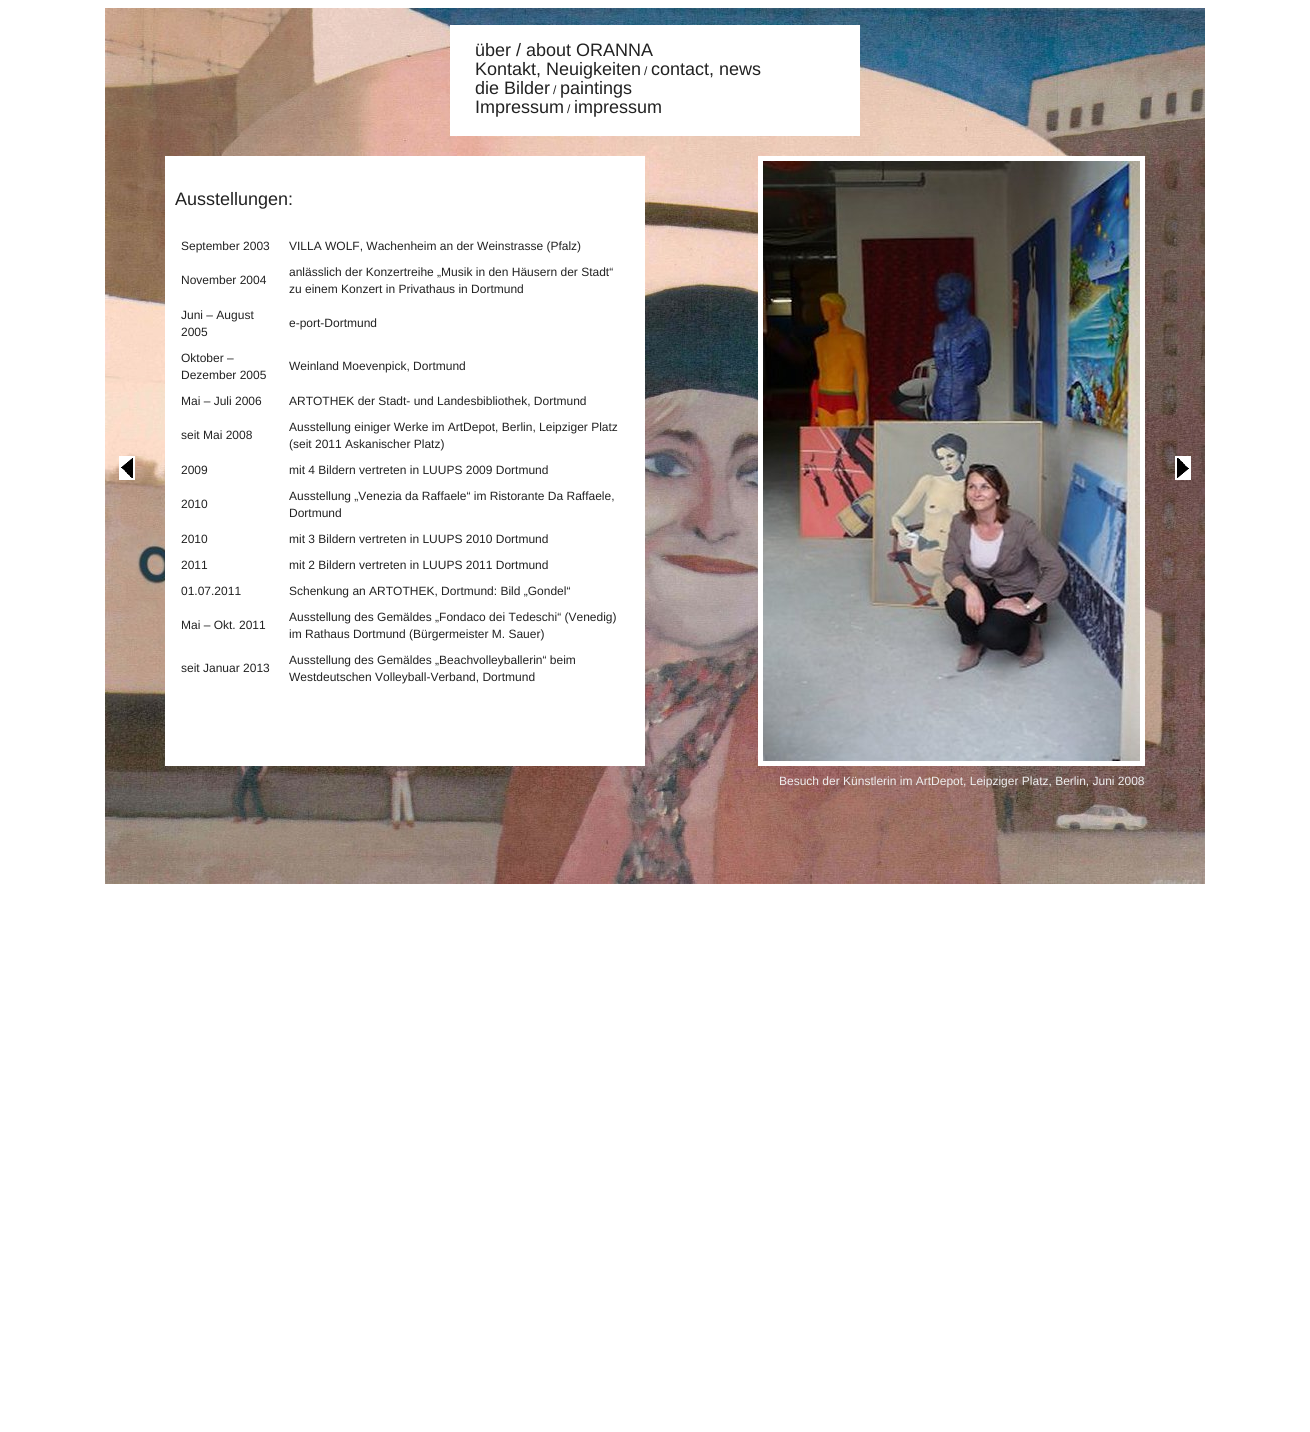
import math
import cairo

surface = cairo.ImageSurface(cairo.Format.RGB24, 1310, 1432)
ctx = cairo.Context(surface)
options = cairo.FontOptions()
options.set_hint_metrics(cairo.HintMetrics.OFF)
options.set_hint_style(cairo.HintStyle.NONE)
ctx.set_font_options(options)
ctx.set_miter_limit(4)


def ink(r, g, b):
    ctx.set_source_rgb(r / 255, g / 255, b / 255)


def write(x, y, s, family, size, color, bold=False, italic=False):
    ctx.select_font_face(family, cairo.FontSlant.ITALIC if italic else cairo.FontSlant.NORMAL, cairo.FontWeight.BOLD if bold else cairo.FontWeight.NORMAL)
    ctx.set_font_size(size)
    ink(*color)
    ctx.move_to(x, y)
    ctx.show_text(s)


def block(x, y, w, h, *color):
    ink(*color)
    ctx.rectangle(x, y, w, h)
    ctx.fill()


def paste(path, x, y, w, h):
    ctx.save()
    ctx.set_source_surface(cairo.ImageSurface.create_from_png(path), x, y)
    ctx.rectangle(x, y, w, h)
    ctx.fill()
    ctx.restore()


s1 = dict(family="Liberation Sans", size=18, color=(34, 34, 34))
s2 = dict(family="Liberation Sans", size=12, color=(34, 34, 34))
s3 = dict(family="Liberation Sans", size=12, color=(238, 238, 238))

ink(255, 255, 255)
ctx.paint()
paste("pic1.png", 105, 8, 1100, 876)
block(450, 25, 410, 111, 255, 255, 255)
write(475, 56, "über / about ORANNA", **s1)
write(475, 75, "Kontakt, Neuigkeiten", **s1)
write(644, 75, "/", **s2)
write(651, 75, "contact, news", **s1)
write(475, 94, "die Bilder", **s1)
write(553, 94, "/", **s2)
write(560, 94, "paintings", **s1)
write(475, 113, "Impressum", **s1)
write(567, 113, "/", **s2)
write(574, 113, "impressum", **s1)
block(165, 156, 480, 610, 255, 255, 255)
write(175, 205, "Ausstellungen:", **s1)
write(181, 250, "September 2003", **s2)
write(289, 250, "VILLA WOLF, Wachenheim an der Weinstrasse (Pfalz)", **s2)
write(181, 284, "November 2004", **s2)
write(289, 276, "anlässlich der Konzertreihe „Musik in den Häusern der Stadt“", **s2)
write(289, 293, "zu einem Konzert in Privathaus in Dortmund", **s2)
write(181, 319, "Juni – August", **s2)
write(181, 336, "2005", **s2)
write(289, 327, "e-port-Dortmund", **s2)
write(181, 362, "Oktober –", **s2)
write(181, 379, "Dezember 2005", **s2)
write(289, 370, "Weinland Moevenpick, Dortmund", **s2)
write(181, 405, "Mai – Juli 2006", **s2)
write(289, 405, "ARTOTHEK der Stadt- und Landesbibliothek, Dortmund", **s2)
write(181, 439, "seit Mai 2008", **s2)
write(289, 431, "Ausstellung einiger Werke im ArtDepot, Berlin, Leipziger Platz", **s2)
write(289, 448, "(seit 2011 Askanischer Platz)", **s2)
write(181, 474, "2009", **s2)
write(289, 474, "mit 4 Bildern vertreten in LUUPS 2009 Dortmund", **s2)
write(181, 508, "2010", **s2)
write(289, 500, "Ausstellung „Venezia da Raffaele“ im Ristorante Da Raffaele,", **s2)
write(289, 517, "Dortmund", **s2)
write(181, 543, "2010", **s2)
write(289, 543, "mit 3 Bildern vertreten in LUUPS 2010 Dortmund", **s2)
write(181, 569, "2011", **s2)
write(289, 569, "mit 2 Bildern vertreten in LUUPS 2011 Dortmund", **s2)
write(181, 595, "01.07.2011", **s2)
write(289, 595, "Schenkung an ARTOTHEK, Dortmund: Bild „Gondel“", **s2)
write(181, 629, "Mai – Okt. 2011", **s2)
write(289, 621, "Ausstellung des Gemäldes „Fondaco dei Tedeschi“ (Venedig)", **s2)
write(289, 638, "im Rathaus Dortmund (Bürgermeister M. Sauer)", **s2)
write(181, 672, "seit Januar 2013", **s2)
write(289, 664, "Ausstellung des Gemäldes „Beachvolleyballerin“ beim", **s2)
write(289, 681, "Westdeutschen Volleyball-Verband, Dortmund", **s2)
block(119, 456, 16, 24, 255, 255, 255)
paste("pic2.png", 121, 458, 12, 20)
block(758, 156, 387, 610, 255, 255, 255)
paste("pic3.png", 763, 161, 377, 600)
block(1175, 456, 16, 24, 255, 255, 255)
paste("pic4.png", 1177, 458, 12, 20)
write(779, 785, "Besuch der Künstlerin im ArtDepot, Leipziger Platz, Berlin, Juni 2008", **s3)
surface.write_to_png("screenshot.png")
